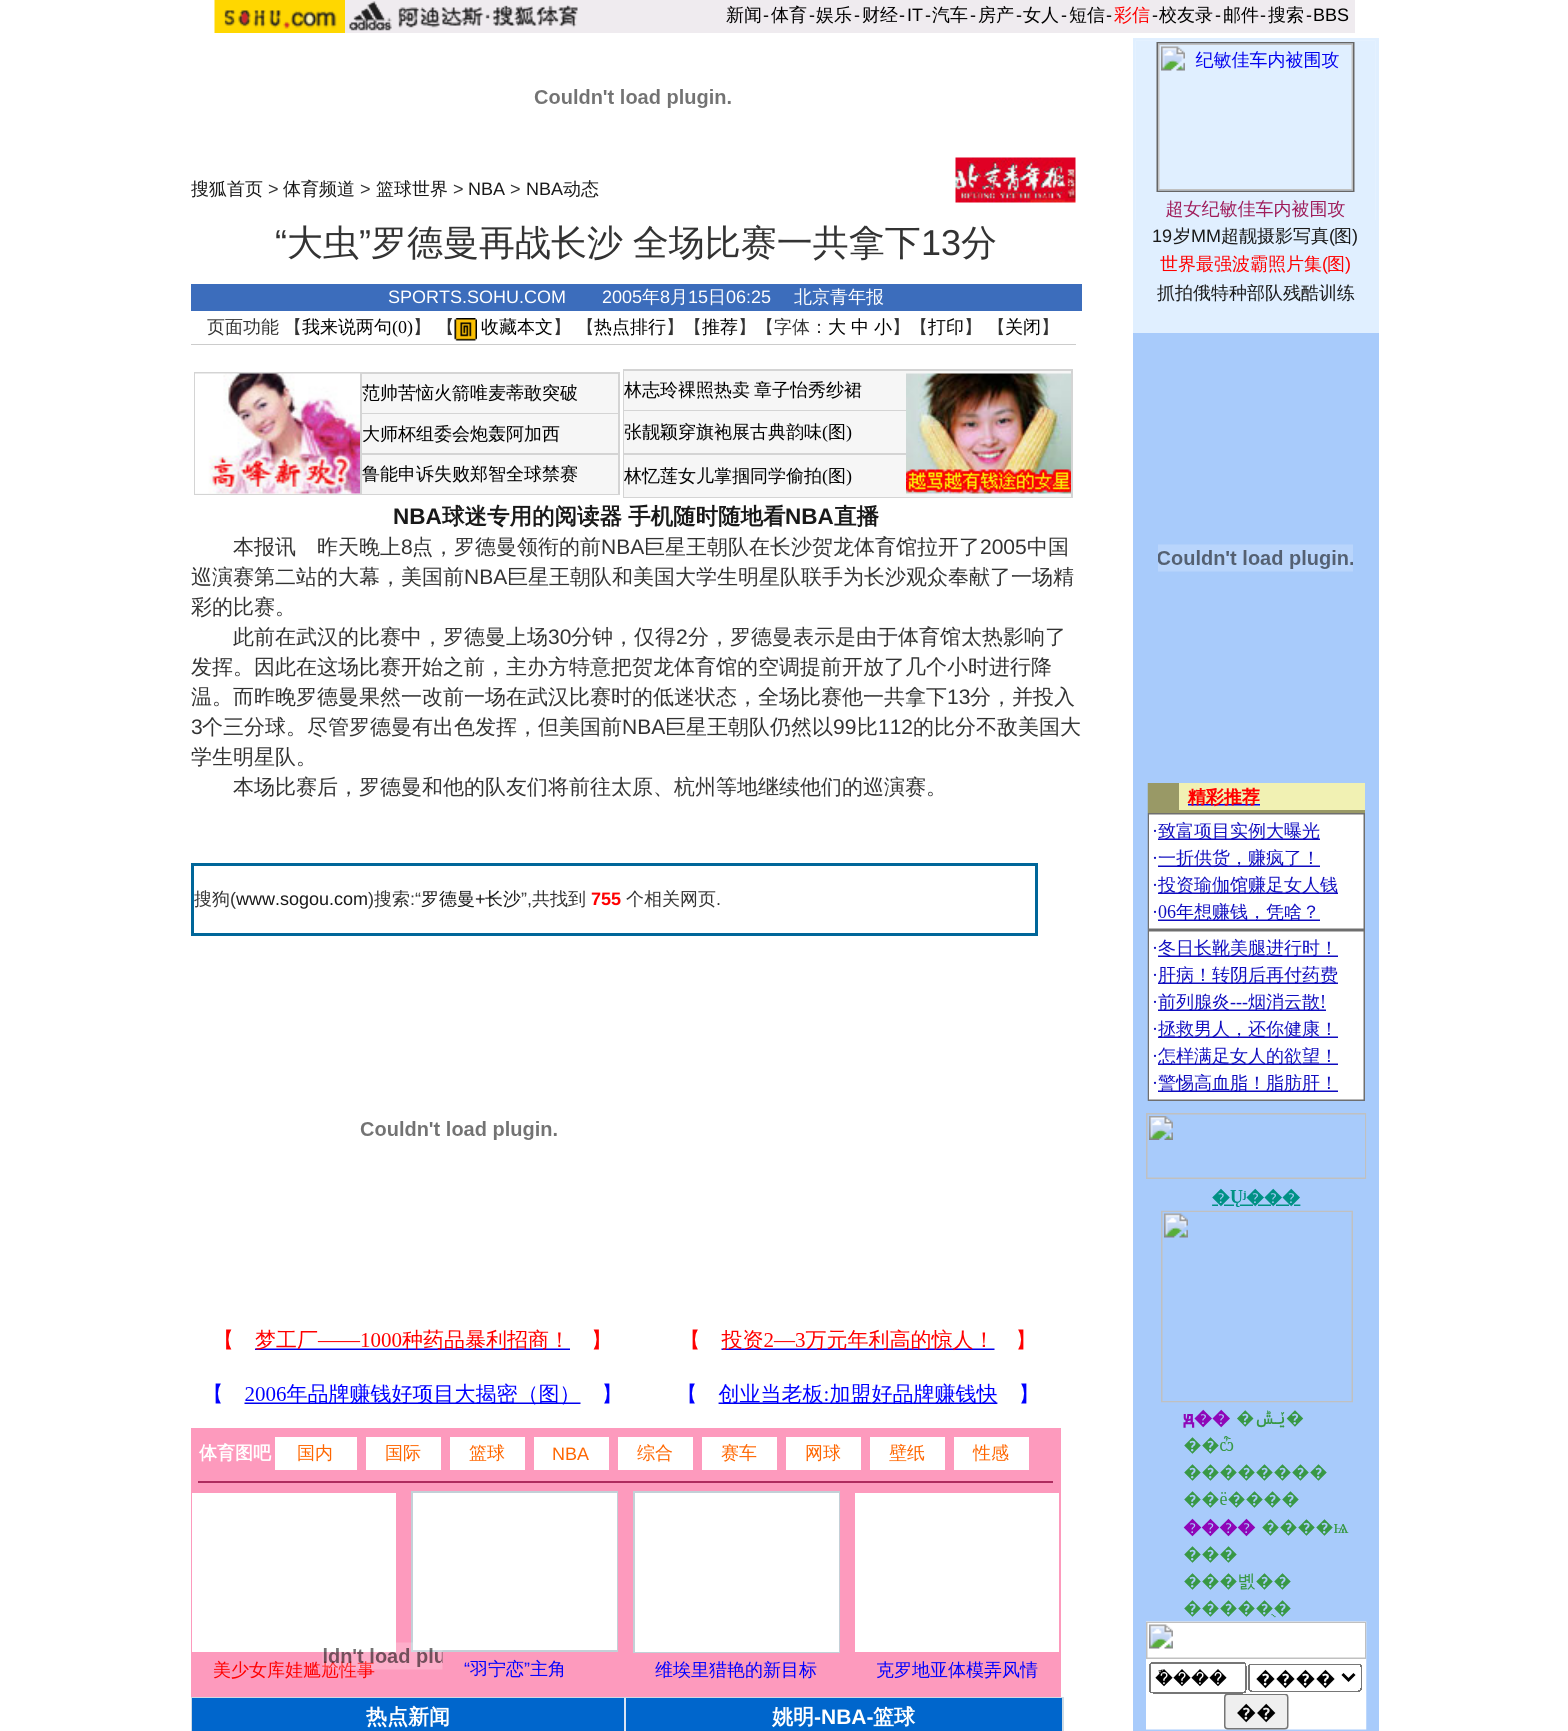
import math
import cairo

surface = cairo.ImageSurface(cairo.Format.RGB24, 1568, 1731)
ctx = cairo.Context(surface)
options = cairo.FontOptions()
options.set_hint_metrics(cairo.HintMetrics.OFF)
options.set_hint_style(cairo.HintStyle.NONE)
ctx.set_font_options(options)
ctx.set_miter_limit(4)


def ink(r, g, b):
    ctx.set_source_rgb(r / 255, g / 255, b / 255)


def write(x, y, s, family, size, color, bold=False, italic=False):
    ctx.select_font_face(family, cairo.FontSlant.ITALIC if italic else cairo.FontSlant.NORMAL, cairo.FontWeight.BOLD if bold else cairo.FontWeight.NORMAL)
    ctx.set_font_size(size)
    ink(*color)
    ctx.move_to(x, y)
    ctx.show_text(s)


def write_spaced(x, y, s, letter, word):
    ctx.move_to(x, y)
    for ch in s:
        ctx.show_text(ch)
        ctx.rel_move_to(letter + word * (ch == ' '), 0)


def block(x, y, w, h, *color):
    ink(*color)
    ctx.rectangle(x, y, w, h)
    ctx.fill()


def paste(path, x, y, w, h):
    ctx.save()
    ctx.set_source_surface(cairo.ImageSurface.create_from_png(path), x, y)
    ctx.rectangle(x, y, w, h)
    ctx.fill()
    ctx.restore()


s1 = dict(family="WenQuanYi Zen Hei Medium", size=18, color=(0, 0, 0))
s2 = dict(family="Liberation Sans", size=18, color=(0, 0, 0))
s3 = dict(family="WenQuanYi Zen Hei Medium", size=18, color=(255, 0, 0))
s4 = dict(family="WenQuanYi Zen Hei Medium", size=18, color=(25, 25, 25))
s5 = dict(family="Liberation Sans", size=18, color=(51, 51, 51))
s6 = dict(family="Liberation Sans", size=18, color=(25, 25, 25))
s7 = dict(family="Liberation Sans", size=36, color=(51, 51, 51))
s8 = dict(family="WenQuanYi Zen Hei Medium", size=36, color=(51, 51, 51))
s9 = dict(family="Liberation Sans", size=18, color=(255, 255, 255))
s10 = dict(family="WenQuanYi Zen Hei Medium", size=18, color=(255, 255, 255))
s11 = dict(family="WenQuanYi Zen Hei Medium", size=18, color=(51, 51, 51))
s12 = dict(family="Liberation Serif", size=18, color=(0, 0, 0))
s13 = dict(family="Liberation Sans", size=22.5, color=(25, 25, 25), bold=True)
s14 = dict(family="WenQuanYi Zen Hei", size=22.5, color=(25, 25, 25), bold=True)
s15 = dict(family="WenQuanYi Zen Hei Medium", size=21, color=(51, 51, 51))
s16 = dict(family="Liberation Sans", size=21, color=(51, 51, 51))
s17 = dict(family="Liberation Sans", size=18, color=(255, 0, 0), bold=True)
s18 = dict(family="WenQuanYi Zen Hei", size=18, color=(255, 255, 255), bold=True)
s19 = dict(family="WenQuanYi Zen Hei Medium", size=18, color=(255, 102, 0))
s20 = dict(family="Liberation Sans", size=18, color=(255, 102, 0))
s21 = dict(family="Liberation Sans", size=18, color=(0, 0, 255))
s22 = dict(family="WenQuanYi Zen Hei Medium", size=18, color=(0, 0, 255))
s23 = dict(family="WenQuanYi Zen Hei", size=21, color=(255, 255, 255), bold=True)
s24 = dict(family="Liberation Sans", size=21, color=(255, 255, 255), bold=True)
s25 = dict(family="Liberation Sans", size=18, color=(255, 0, 0))

ink(255, 255, 255)
ctx.paint()
paste("pic1.png", 214, 0, 131, 33)
block(345, 0, 1010, 33, 239, 235, 239)
paste("pic2.png", 349, 1, 229, 30)
write(726, 21, "新闻", **s1)
write(763, 21, "-", **s2)
write(771, 21, "体育", **s1)
write(809, 21, "-", **s2)
write(816, 21, "娱乐", **s1)
write(854, 21, "-", **s2)
write(862, 21, "财经", **s1)
write(899, 21, "-", **s2)
write(907, 21, "IT", **s2)
write(925, 21, "-", **s2)
write(932, 21, "汽车", **s1)
write(970, 21, "-", **s2)
write(978, 21, "房产", **s1)
write(1016, 21, "-", **s2)
write(1023, 21, "女人", **s1)
write(1061, 21, "-", **s2)
write(1069, 21, "短信", **s1)
write(1106, 21, "-", **s2)
write(1114, 21, "彩信", **s3)
write(1152, 21, "-", **s2)
write(1159, 21, "校友录", **s1)
write(1215, 21, "-", **s2)
write(1223, 21, "邮件", **s1)
write(1260, 21, "-", **s2)
write(1268, 21, "搜索", **s1)
write(1306, 21, "-", **s2)
write(1313, 21, "BBS", **s2)
paste("pic3.png", 534, 89, 197, 19)
write(191, 195, "搜狐首页", **s4)
write(268, 195, ">", **s5)
write(283, 195, "体育频道", **s4)
write(360, 195, ">", **s5)
write(376, 195, "篮球世界", **s4)
write(453, 195, ">", **s5)
write(468, 195, "NBA", **s6)
write(510, 195, ">", **s5)
write(526, 195, "NBA", **s6)
write(563, 195, "动态", **s4)
paste("pic4.png", 955, 157, 121, 46)
write(275, 255, "“", **s7)
write(287, 255, "大虫", **s8)
write(359, 255, "”", **s7)
ctx.select_font_face("WenQuanYi Zen Hei Medium")
write_spaced(371, 255, "罗德曼再战长沙 全场比赛一共拿下", 0, -1)
write(921, 255, "13", **s7)
write(961, 255, "分", **s8)
block(191, 284, 891, 27, 60, 109, 188)
write(388, 303, "SPORTS.SOHU.COM", **s9)
write(602, 303, "2005", **s9)
write(642, 303, "年", **s10)
write(660, 303, "8", **s9)
write(670, 303, "月", **s10)
write(688, 303, "15", **s9)
write(708, 303, "日", **s10)
write(726, 303, "06:25", **s9)
write(794, 303, "北京青年报", **s10)
write(207, 333, "页面功能", **s11)
write(284, 333, "【", **s11)
write(302, 333, "我来说两句", **s1)
write(392, 333, "(0)", **s12)
write(413, 333, "】 【", **s11)
paste("pic5.png", 454, 318, 23, 23)
write(481, 333, "收藏本文", **s1)
write(553, 333, "】 【", **s11)
write(594, 333, "热点排行", **s1)
write(666, 333, "】【", **s11)
write(702, 333, "推荐", **s1)
write(738, 333, "】【字体：", **s11)
write(828, 333, "大", **s1)
write(851, 333, "中", **s1)
write(874, 333, "小", **s1)
write(892, 333, "】【", **s11)
write(928, 333, "打印", **s1)
write(964, 333, "】 【", **s11)
write(1005, 333, "关闭", **s1)
write(1041, 333, "】", **s11)
block(191, 344, 885, 1, 204, 204, 204)
block(194, 372, 426, 123, 212, 212, 212)
block(195, 493, 165, 1, 246, 246, 246)
paste("pic6.png", 195, 373, 165, 121)
block(362, 374, 256, 39, 246, 246, 246)
write(362, 399, "范帅苦恼火箭唯麦蒂敢突破", **s1)
block(362, 414, 256, 39, 246, 246, 246)
write(362, 440, "大师杯组委会炮轰阿加西", **s1)
block(362, 455, 256, 39, 246, 246, 246)
write(362, 480, "鲁能申诉失败郑智全球禁赛", **s1)
block(623, 369, 450, 129, 212, 212, 212)
block(624, 371, 447, 39, 246, 246, 246)
write(624, 396, "林志玲裸照热卖", **s1)
write(754, 396, "章子怡秀纱裙", **s1)
block(624, 455, 447, 42, 246, 246, 246)
paste("pic7.png", 906, 373, 165, 121)
block(624, 411, 282, 42, 246, 246, 246)
write(624, 438, "张靓颖穿旗袍展古典韵味", **s1)
write(822, 438, "(", **s12)
write(828, 438, "图", **s1)
write(846, 438, ")", **s12)
write(624, 482, "林忆莲女儿掌掴同学偷拍", **s1)
write(822, 482, "(", **s12)
write(828, 482, "图", **s1)
write(846, 482, ")", **s12)
write(393, 524, "NBA", **s13)
write(442, 524, "球迷专用的阅读器", **s14)
write(628, 524, "手机随时随地看", **s14)
write(785, 524, "NBA", **s13)
write(834, 524, "直播", **s14)
write(233, 554, "本报讯　昨天晚上", **s15)
write(401, 554, "8", **s16)
write(412, 554, "点，罗德曼领衔的前", **s15)
write(601, 554, "NBA", **s16)
write(644, 554, "巨星王朝队在长沙贺龙体育馆拉开了", **s15)
write(980, 554, "2005", **s16)
write(1027, 554, "中国", **s15)
write(191, 584, "巡演赛第二站的大幕，美国前", **s15)
write(464, 584, "NBA", **s16)
write(507, 584, "巨星王朝队和美国大学生明星队联手为长沙观众奉献了一场精", **s15)
write(191, 614, "彩的比赛。", **s15)
write(233, 644, "此前在武汉的比赛中，罗德曼上场", **s15)
write(548, 644, "30", **s16)
write(571, 644, "分钟，仅得", **s15)
write(676, 644, "2", **s16)
write(688, 644, "分，罗德曼表示是由于体育馆太热影响了", **s15)
write(191, 674, "发挥。因此在这场比赛开始之前，主办方特意把贺龙体育馆的空调提前开放了几个小时进行降", **s15)
write(191, 704, "温。而昨晚罗德曼果然一改前一场在武汉比赛时的低迷状态，全场比赛他一共拿下", **s15)
write(947, 704, "13", **s16)
write(970, 704, "分，并投入", **s15)
write(191, 734, "3", **s16)
write(202, 734, "个三分球。尽管罗德曼有出色发挥，但美国前", **s15)
write(622, 734, "NBA", **s16)
write(665, 734, "巨星王朝队仍然以", **s15)
write(833, 734, "99", **s16)
write(857, 734, "比", **s15)
write(878, 734, "112", **s16)
write(913, 734, "的比分不敌美国大", **s15)
write(191, 764, "学生明星队。", **s15)
write(233, 794, "本场比赛后，罗德曼和他的队友们将前往太原、杭州等地继续他们的巡演赛。", **s15)
block(191, 863, 847, 73, 0, 102, 153)
block(194, 866, 841, 67, 255, 255, 255)
write(194, 905, "搜狗", **s11)
write(230, 905, "(", **s5)
write(236, 905, "www.sogou.com", **s6)
write(368, 905, ")", **s5)
write(374, 905, "搜索", **s11)
write(410, 905, ":“", **s5)
write(421, 905, "罗德曼", **s4)
write(475, 905, "+", **s6)
write(485, 905, "长沙", **s4)
write(521, 905, "”,", **s5)
write(532, 905, "共找到", **s11)
write(591, 905, "755", **s17)
write(626, 905, "个相关网页", **s11)
write(716, 905, ".", **s5)
paste("pic3.png", 360, 1121, 197, 19)
paste("pic8.png", 215, 1329, 395, 76)
paste("pic9.png", 689, 1329, 338, 75)
block(191, 1428, 870, 269, 253, 154, 189)
write(199, 1459, "体育图吧", **s18)
block(275, 1437, 82, 33, 255, 255, 255)
write(297, 1459, "国内", **s19)
block(366, 1437, 75, 33, 255, 255, 255)
write(385, 1459, "国际", **s19)
block(450, 1437, 75, 33, 255, 255, 255)
write(469, 1459, "篮球", **s19)
block(534, 1437, 75, 33, 255, 255, 255)
write(552, 1460, "NBA", **s20)
block(618, 1437, 75, 33, 255, 255, 255)
write(637, 1459, "综合", **s19)
block(702, 1437, 75, 33, 255, 255, 255)
write(721, 1459, "赛车", **s19)
block(786, 1437, 75, 33, 255, 255, 255)
write(805, 1459, "网球", **s19)
block(870, 1437, 75, 33, 255, 255, 255)
write(889, 1459, "壁纸", **s19)
block(954, 1437, 75, 33, 255, 255, 255)
write(973, 1459, "性感", **s19)
block(198, 1481, 855, 2, 174, 44, 95)
block(192, 1493, 204, 159, 255, 255, 255)
write(213, 1676, "美少女库娃尴尬性事", **s3)
block(411, 1491, 207, 161, 195, 208, 215)
block(413, 1493, 204, 157, 255, 255, 255)
write(464, 1675, "“", **s21)
write(470, 1675, "羽宁恋", **s22)
write(524, 1675, "”", **s21)
write(530, 1675, "主角", **s22)
block(633, 1491, 207, 162, 195, 208, 215)
block(635, 1493, 204, 159, 255, 255, 255)
write(655, 1676, "维埃里猎艳的新目标", **s22)
block(855, 1493, 204, 159, 255, 255, 255)
write(876, 1676, "克罗地亚体模弄风情", **s22)
block(191, 1697, 873, 34, 206, 219, 229)
block(624, 1698, 2, 33, 217, 227, 244)
block(192, 1698, 432, 33, 0, 102, 204)
write(366, 1724, "热点新闻", **s23)
block(626, 1698, 436, 33, 0, 102, 204)
write(772, 1724, "姚明", **s23)
write(814, 1724, "-NBA-", **s24)
write(873, 1724, "篮球", **s23)
block(1133, 333, 246, 1398, 168, 203, 251)
block(1133, 38, 246, 295, 224, 239, 255)
paste("pic10.png", 1135, 40, 241, 180)
write(1152, 242, "19", **s6)
write(1173, 242, "岁", **s4)
write(1191, 242, "MM", **s6)
write(1221, 242, "超靓摄影写真", **s4)
write(1329, 242, "(", **s6)
write(1334, 242, "图", **s4)
write(1352, 242, ")", **s6)
write(1160, 270, "世界最强波霸照片集", **s3)
write(1322, 270, "(", **s25)
write(1327, 270, "图", **s3)
write(1345, 270, ")", **s25)
write(1157, 299, "抓拍俄特种部队残酷训练", **s4)
paste("pic11.png", 1158, 544, 195, 28)
paste("pic12.png", 1147, 783, 218, 318)
paste("pic13.png", 1146, 1113, 221, 617)
paste("pic14.png", 322, 1642, 121, 28)
surface.write_to_png("screenshot.png")
